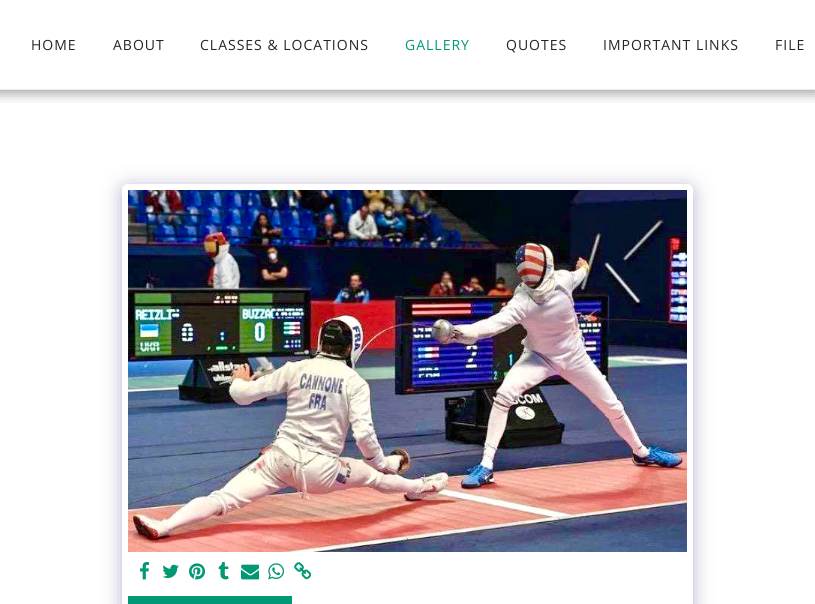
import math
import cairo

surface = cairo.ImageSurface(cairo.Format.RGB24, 815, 604)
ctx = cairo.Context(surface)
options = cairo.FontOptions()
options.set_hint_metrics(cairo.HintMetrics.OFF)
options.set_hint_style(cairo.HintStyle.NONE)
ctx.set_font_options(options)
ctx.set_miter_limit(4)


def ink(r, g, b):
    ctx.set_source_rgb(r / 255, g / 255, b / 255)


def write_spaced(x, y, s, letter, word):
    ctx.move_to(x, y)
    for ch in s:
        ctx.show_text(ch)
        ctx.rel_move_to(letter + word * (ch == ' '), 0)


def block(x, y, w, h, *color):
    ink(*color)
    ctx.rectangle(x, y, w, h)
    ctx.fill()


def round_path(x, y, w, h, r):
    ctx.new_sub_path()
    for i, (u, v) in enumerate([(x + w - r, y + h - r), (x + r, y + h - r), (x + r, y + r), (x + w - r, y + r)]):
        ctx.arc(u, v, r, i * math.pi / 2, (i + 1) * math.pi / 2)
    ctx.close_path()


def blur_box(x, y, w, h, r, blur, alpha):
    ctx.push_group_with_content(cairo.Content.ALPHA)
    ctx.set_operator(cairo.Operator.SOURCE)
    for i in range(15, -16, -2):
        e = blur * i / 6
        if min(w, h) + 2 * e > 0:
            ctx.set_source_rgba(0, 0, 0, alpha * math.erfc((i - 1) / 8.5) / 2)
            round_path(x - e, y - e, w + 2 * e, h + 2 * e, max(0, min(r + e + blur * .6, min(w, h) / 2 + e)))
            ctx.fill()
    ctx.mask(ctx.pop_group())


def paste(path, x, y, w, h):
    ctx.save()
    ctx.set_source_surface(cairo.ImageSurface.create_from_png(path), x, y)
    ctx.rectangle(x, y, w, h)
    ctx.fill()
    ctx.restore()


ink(255, 255, 255)
ctx.paint()
ctx.save()
ctx.rectangle(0, 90, 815, 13)
ctx.clip()
ink(0, 0, 0)
blur_box(-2, 0, 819, 94, 0, 6, 0.35)
ctx.restore()
block(0, 89, 815, 1, 235, 235, 235)
ctx.select_font_face("Open Sans")
ctx.set_font_size(14)
ink(37, 37, 37)
write_spaced(31, 50, "HOME", 1, 0)
write_spaced(113, 50, "ABOUT", 1, 0)
write_spaced(200, 50, "CLASSES & LOCATIONS", 1, 0)
ink(1, 152, 117)
write_spaced(405, 50, "GALLERY", 1, 0)
ink(37, 37, 37)
write_spaced(506, 50, "QUOTES", 1, 0)
write_spaced(603, 50, "IMPORTANT LINKS", 1, 0)
write_spaced(775, 50, "FILE", 1, 0)
ink(77, 63, 122)
blur_box(122, 187, 571, 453, 6, 10, 0.4)
ink(255, 255, 255)
round_path(122, 184, 571, 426, 6)
ctx.fill()
paste("pic1.png", 128, 190, 559, 362)
paste("pic2.png", 140, 562, 10, 18)
paste("pic3.png", 162, 564, 17, 15)
paste("pic4.png", 189, 563, 16, 17)
paste("pic5.png", 218, 562, 11, 18)
paste("pic6.png", 241, 564, 18, 16)
paste("pic7.png", 268, 563, 16, 17)
paste("pic8.png", 294, 562, 17, 18)
block(128, 596, 164, 8, 1, 152, 117)
surface.write_to_png("screenshot.png")
